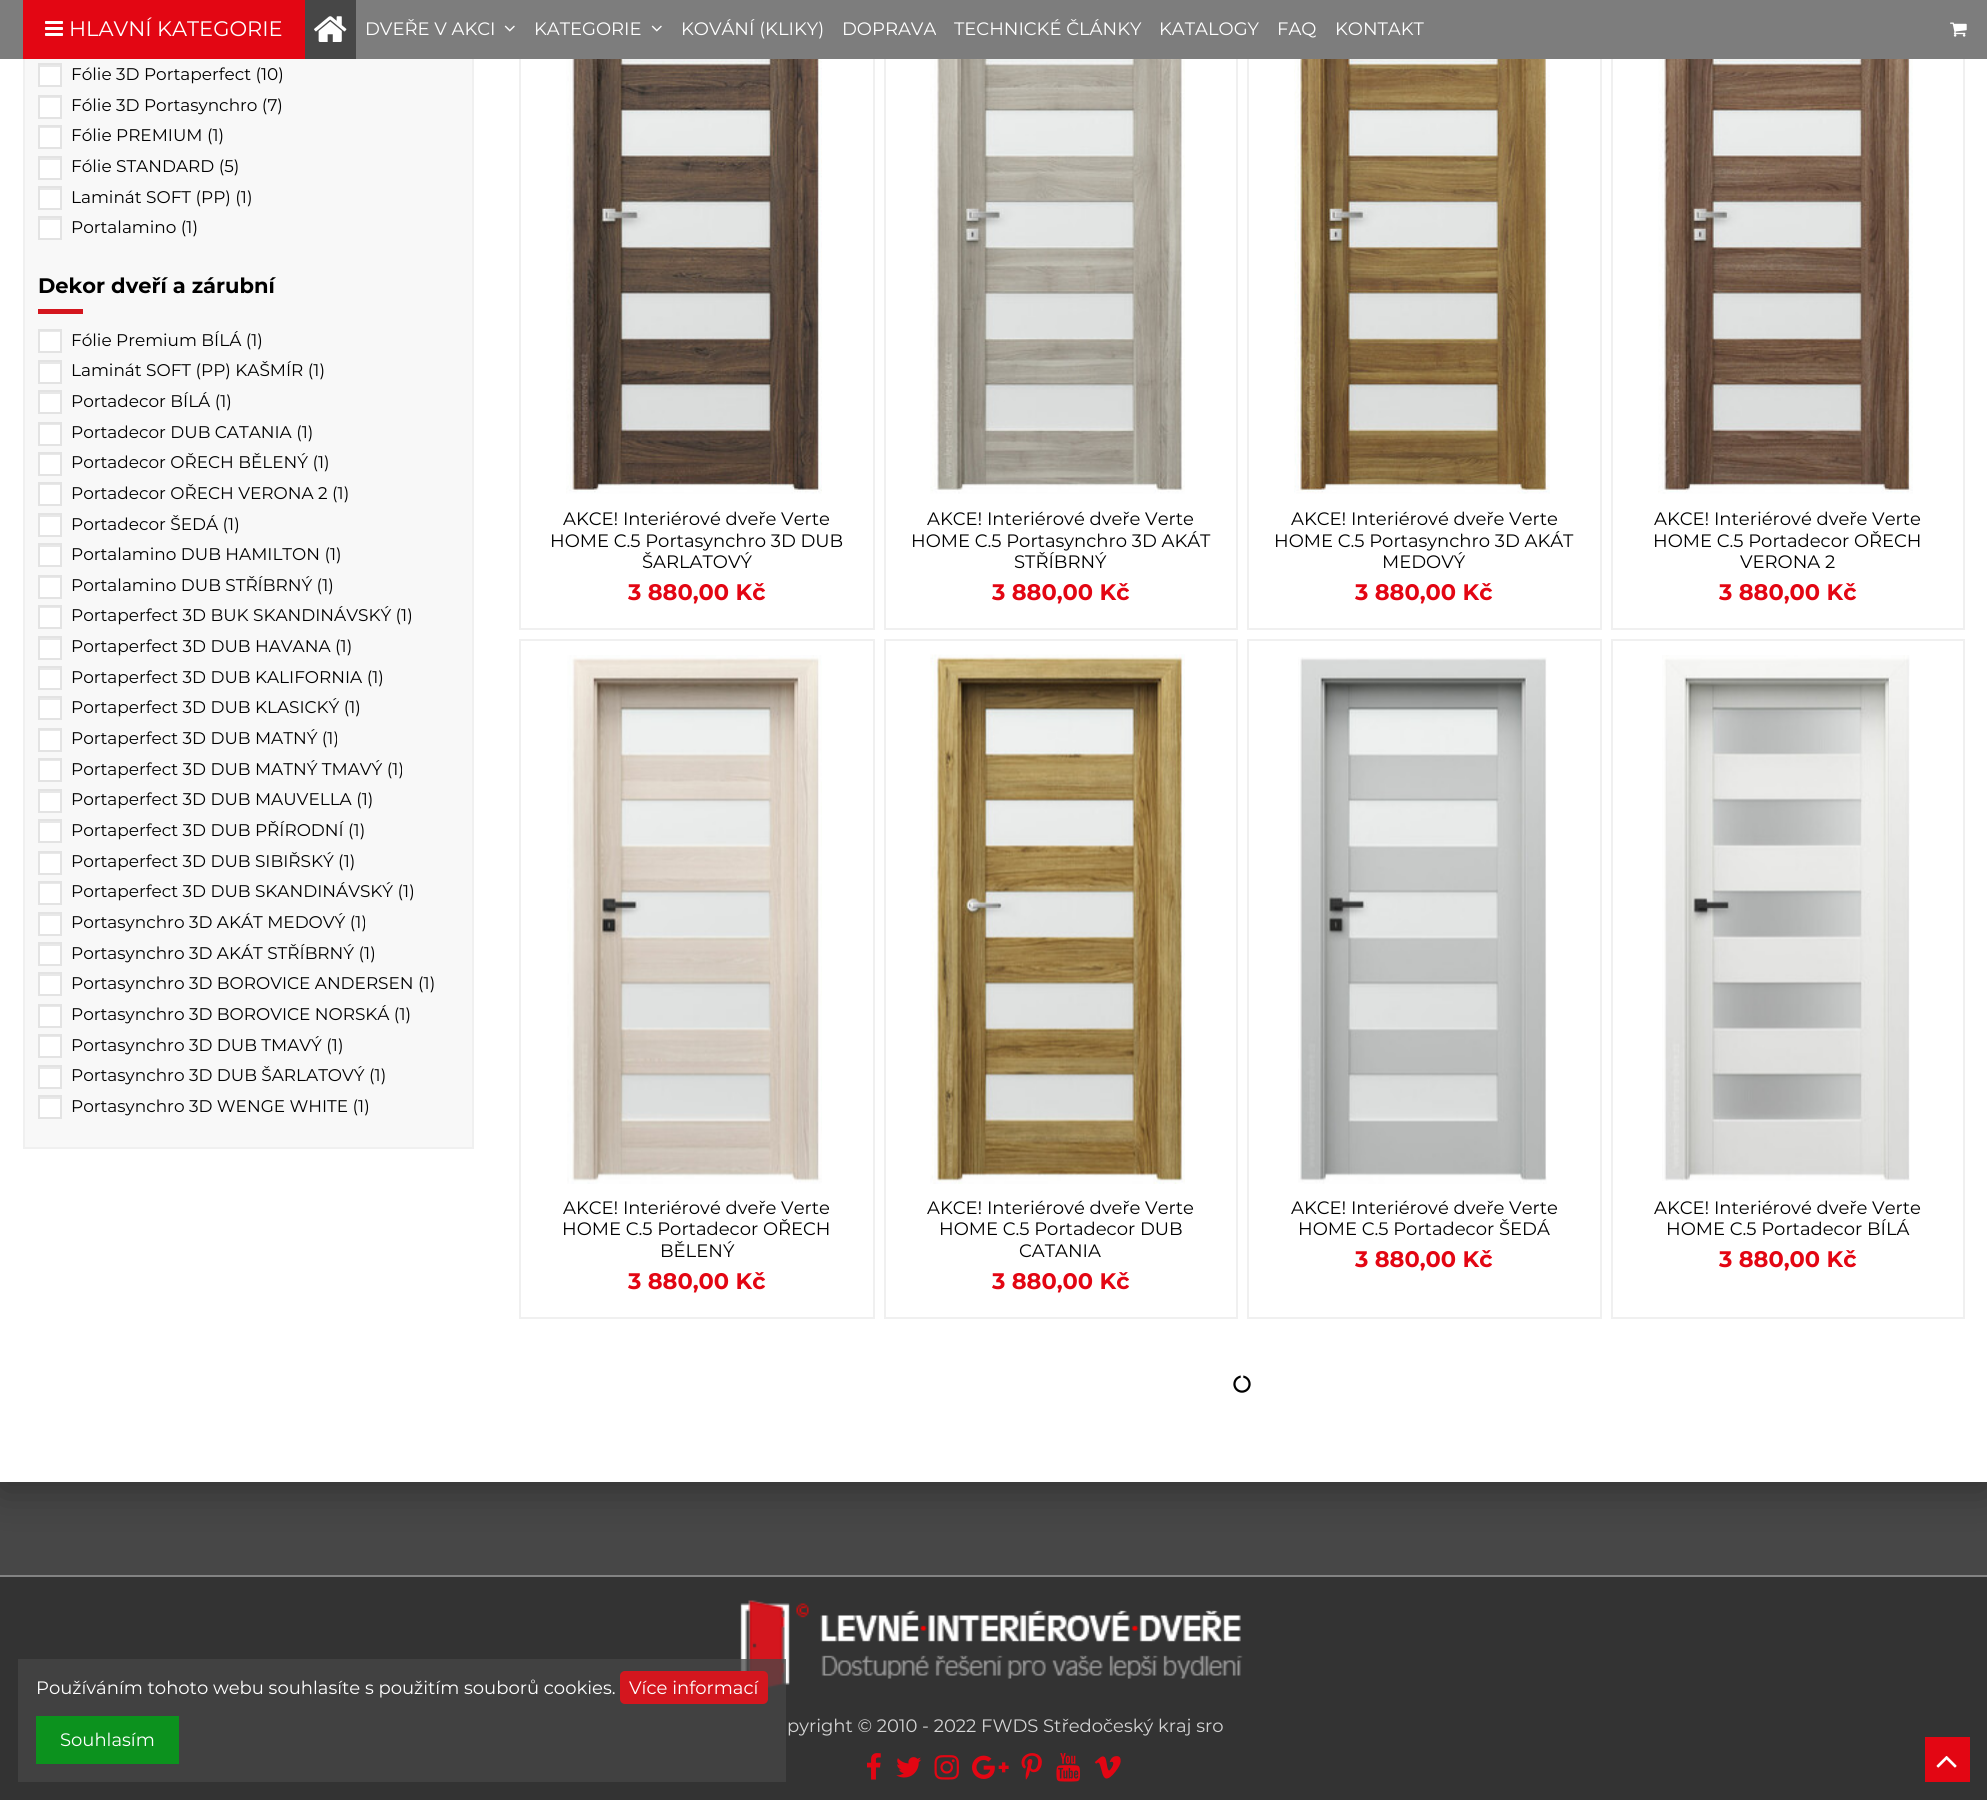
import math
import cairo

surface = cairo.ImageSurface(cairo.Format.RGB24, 1987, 1800)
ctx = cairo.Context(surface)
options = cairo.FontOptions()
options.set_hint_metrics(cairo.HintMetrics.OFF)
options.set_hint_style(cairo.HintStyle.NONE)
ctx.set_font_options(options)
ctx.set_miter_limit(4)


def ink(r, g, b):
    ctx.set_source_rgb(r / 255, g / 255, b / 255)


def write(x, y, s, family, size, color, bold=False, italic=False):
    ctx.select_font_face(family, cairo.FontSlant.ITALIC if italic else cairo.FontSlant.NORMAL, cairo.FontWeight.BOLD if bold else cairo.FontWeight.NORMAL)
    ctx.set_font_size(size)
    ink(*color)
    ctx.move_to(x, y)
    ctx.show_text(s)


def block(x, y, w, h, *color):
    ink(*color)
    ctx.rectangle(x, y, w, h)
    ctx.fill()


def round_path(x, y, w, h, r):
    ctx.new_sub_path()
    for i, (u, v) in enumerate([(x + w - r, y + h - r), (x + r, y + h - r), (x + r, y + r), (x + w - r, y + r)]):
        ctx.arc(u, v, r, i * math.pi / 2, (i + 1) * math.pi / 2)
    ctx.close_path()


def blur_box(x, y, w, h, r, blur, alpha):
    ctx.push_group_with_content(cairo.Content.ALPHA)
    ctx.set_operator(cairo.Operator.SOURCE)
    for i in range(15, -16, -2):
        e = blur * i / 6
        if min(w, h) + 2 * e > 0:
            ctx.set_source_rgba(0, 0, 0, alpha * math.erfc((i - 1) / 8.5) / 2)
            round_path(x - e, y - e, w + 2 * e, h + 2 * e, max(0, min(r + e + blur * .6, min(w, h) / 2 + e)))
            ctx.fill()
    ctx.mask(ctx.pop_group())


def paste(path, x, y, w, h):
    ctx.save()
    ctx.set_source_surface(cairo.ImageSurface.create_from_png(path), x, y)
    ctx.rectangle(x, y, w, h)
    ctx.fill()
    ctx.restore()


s1 = dict(family="Montserrat", size=21, color=(255, 255, 255))
s2 = dict(family="Montserrat", size=18, color=(255, 255, 255))
s3 = dict(family="Montserrat", size=16.9, color=(0, 0, 0))
s4 = dict(family="Montserrat", size=21, color=(0, 0, 0), bold=True)
s5 = dict(family="Montserrat", size=18, color=(0, 0, 0))
s6 = dict(family="Montserrat", size=22.5, color=(227, 6, 19), bold=True)
s7 = dict(family="Montserrat", size=18, color=(212, 212, 212))

ink(71, 71, 71)
ctx.paint()
ink(0, 0, 0)
blur_box(0, -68, 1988, 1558, 0, 22.5, 0.3)
block(0, 59, 1987, 1423, 255, 255, 255)
block(25, 59, 447, 1088, 248, 248, 248)
ctx.rectangle(24, -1, 449, 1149)
ink(240, 240, 240)
ctx.stroke()
ctx.rectangle(520, -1, 354, 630)
ctx.stroke()
ctx.rectangle(885, -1, 352, 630)
ctx.stroke()
ctx.rectangle(1248, -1, 353, 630)
ctx.stroke()
ctx.rectangle(1612, -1, 352, 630)
ctx.stroke()
block(0, 0, 1987, 59, 125, 125, 125)
block(23, 0, 282, 59, 227, 6, 19)
paste("pic1.png", 45, 21, 18, 15)
write(69, 36, "HLAVNÍ KATEGORIE", **s1)
block(305, 0, 51, 59, 71, 71, 71)
paste("pic2.png", 314, 16, 33, 26)
write(365, 35, "DVEŘE V AKCI", **s2)
paste("pic3.png", 504, 25, 11, 7)
write(534, 35, "KATEGORIE", **s2)
paste("pic3.png", 651, 25, 11, 7)
write(681, 35, "KOVÁNÍ (KLIKY)", **s2)
write(842, 35, "DOPRAVA", **s2)
write(954, 35, "TECHNICKÉ ČLÁNKY", **s2)
write(1159, 35, "KATALOGY", **s2)
write(1277, 35, "FAQ", **s2)
write(1335, 35, "KONTAKT", **s2)
paste("pic4.png", 1950, 22, 17, 15)
block(40, 67, 20, 18, 255, 255, 255)
block(39, 65, 21, 2, 232, 232, 232)
ctx.rectangle(39, 64, 22, 22)
ink(227, 227, 227)
ctx.stroke()
write(71, 80, "Fólie 3D Portaperfect (10)", **s3)
block(40, 98, 20, 19, 255, 255, 255)
block(39, 97, 21, 1, 232, 232, 232)
ctx.rectangle(39, 96, 22, 22)
ink(227, 227, 227)
ctx.stroke()
write(71, 111, "Fólie 3D Portasynchro (7)", **s3)
block(40, 128, 20, 19, 255, 255, 255)
block(39, 127, 21, 1, 232, 232, 232)
ctx.rectangle(39, 126, 22, 22)
ink(227, 227, 227)
ctx.stroke()
write(71, 141, "Fólie PREMIUM (1)", **s3)
block(40, 160, 20, 18, 255, 255, 255)
block(39, 158, 21, 2, 232, 232, 232)
ctx.rectangle(39, 157, 22, 22)
ink(227, 227, 227)
ctx.stroke()
write(71, 172, "Fólie STANDARD (5)", **s3)
block(40, 190, 20, 18, 255, 255, 255)
block(39, 188, 21, 2, 232, 232, 232)
ctx.rectangle(39, 187, 22, 22)
ink(227, 227, 227)
ctx.stroke()
write(71, 203, "Laminát SOFT (PP) (1)", **s3)
block(40, 220, 20, 18, 255, 255, 255)
block(39, 218, 21, 2, 232, 232, 232)
ctx.rectangle(39, 217, 22, 22)
ink(227, 227, 227)
ctx.stroke()
write(71, 233, "Portalamino (1)", **s3)
write(38, 293, "Dekor dveří a zárubní", **s4)
block(38, 309, 45, 5, 212, 22, 30)
block(40, 332, 20, 19, 255, 255, 255)
block(39, 331, 21, 1, 232, 232, 232)
ctx.rectangle(39, 330, 22, 22)
ink(227, 227, 227)
ctx.stroke()
write(71, 346, "Fólie Premium BÍLÁ (1)", **s3)
block(40, 364, 20, 18, 255, 255, 255)
block(39, 362, 21, 2, 232, 232, 232)
ctx.rectangle(39, 361, 22, 22)
ink(227, 227, 227)
ctx.stroke()
write(71, 376, "Laminát SOFT (PP) KAŠMÍR (1)", **s3)
block(40, 394, 20, 18, 255, 255, 255)
block(39, 392, 21, 2, 232, 232, 232)
ctx.rectangle(39, 391, 22, 22)
ink(227, 227, 227)
ctx.stroke()
write(71, 407, "Portadecor BÍLÁ (1)", **s3)
block(40, 425, 20, 19, 255, 255, 255)
block(39, 424, 21, 1, 232, 232, 232)
ctx.rectangle(39, 423, 22, 22)
ink(227, 227, 227)
ctx.stroke()
write(71, 438, "Portadecor DUB CATANIA (1)", **s3)
block(40, 455, 20, 19, 255, 255, 255)
block(39, 454, 21, 1, 232, 232, 232)
ctx.rectangle(39, 453, 22, 22)
ink(227, 227, 227)
ctx.stroke()
write(71, 468, "Portadecor OŘECH BĚLENÝ (1)", **s3)
block(40, 485, 20, 19, 255, 255, 255)
block(39, 484, 21, 1, 232, 232, 232)
ctx.rectangle(39, 483, 22, 22)
ink(227, 227, 227)
ctx.stroke()
write(71, 499, "Portadecor OŘECH VERONA 2 (1)", **s3)
block(40, 517, 20, 18, 255, 255, 255)
block(39, 515, 21, 2, 232, 232, 232)
ctx.rectangle(39, 514, 22, 22)
ink(227, 227, 227)
ctx.stroke()
write(71, 530, "Portadecor ŠEDÁ (1)", **s3)
block(40, 547, 20, 18, 255, 255, 255)
block(39, 545, 21, 2, 232, 232, 232)
ctx.rectangle(39, 544, 22, 22)
ink(227, 227, 227)
ctx.stroke()
write(71, 560, "Portalamino DUB HAMILTON (1)", **s3)
block(40, 578, 20, 19, 255, 255, 255)
block(39, 577, 21, 1, 232, 232, 232)
ctx.rectangle(39, 576, 22, 22)
ink(227, 227, 227)
ctx.stroke()
write(71, 591, "Portalamino DUB STŘÍBRNÝ (1)", **s3)
block(40, 608, 20, 19, 255, 255, 255)
block(39, 607, 21, 1, 232, 232, 232)
ctx.rectangle(39, 606, 22, 22)
ink(227, 227, 227)
ctx.stroke()
write(71, 621, "Portaperfect 3D BUK SKANDINÁVSKÝ (1)", **s3)
block(40, 640, 20, 18, 255, 255, 255)
block(39, 638, 21, 2, 232, 232, 232)
ctx.rectangle(39, 637, 22, 22)
ink(227, 227, 227)
ctx.stroke()
write(71, 652, "Portaperfect 3D DUB HAVANA (1)", **s3)
block(40, 670, 20, 18, 255, 255, 255)
block(39, 668, 21, 2, 232, 232, 232)
ctx.rectangle(39, 667, 22, 22)
ink(227, 227, 227)
ctx.stroke()
write(71, 683, "Portaperfect 3D DUB KALIFORNIA (1)", **s3)
block(40, 700, 20, 18, 255, 255, 255)
block(39, 698, 21, 2, 232, 232, 232)
ctx.rectangle(39, 697, 22, 22)
ink(227, 227, 227)
ctx.stroke()
write(71, 713, "Portaperfect 3D DUB KLASICKÝ (1)", **s3)
block(40, 731, 20, 19, 255, 255, 255)
block(39, 730, 21, 1, 232, 232, 232)
ctx.rectangle(39, 729, 22, 22)
ink(227, 227, 227)
ctx.stroke()
write(71, 744, "Portaperfect 3D DUB MATNÝ (1)", **s3)
block(40, 761, 20, 19, 255, 255, 255)
block(39, 760, 21, 1, 232, 232, 232)
ctx.rectangle(39, 759, 22, 22)
ink(227, 227, 227)
ctx.stroke()
write(71, 775, "Portaperfect 3D DUB MATNÝ TMAVÝ (1)", **s3)
block(40, 793, 20, 18, 255, 255, 255)
block(39, 791, 21, 2, 232, 232, 232)
ctx.rectangle(39, 790, 22, 22)
ink(227, 227, 227)
ctx.stroke()
write(71, 805, "Portaperfect 3D DUB MAUVELLA (1)", **s3)
block(40, 823, 20, 18, 255, 255, 255)
block(39, 821, 21, 2, 232, 232, 232)
ctx.rectangle(39, 820, 22, 22)
ink(227, 227, 227)
ctx.stroke()
write(71, 836, "Portaperfect 3D DUB PŘÍRODNÍ (1)", **s3)
block(40, 854, 20, 19, 255, 255, 255)
block(39, 853, 21, 1, 232, 232, 232)
ctx.rectangle(39, 852, 22, 22)
ink(227, 227, 227)
ctx.stroke()
write(71, 867, "Portaperfect 3D DUB SIBIŘSKÝ (1)", **s3)
block(40, 884, 20, 19, 255, 255, 255)
block(39, 883, 21, 1, 232, 232, 232)
ctx.rectangle(39, 882, 22, 22)
ink(227, 227, 227)
ctx.stroke()
write(71, 897, "Portaperfect 3D DUB SKANDINÁVSKÝ (1)", **s3)
block(40, 916, 20, 18, 255, 255, 255)
block(39, 914, 21, 2, 232, 232, 232)
ctx.rectangle(39, 913, 22, 22)
ink(227, 227, 227)
ctx.stroke()
write(71, 928, "Portasynchro 3D AKÁT MEDOVÝ (1)", **s3)
block(40, 946, 20, 18, 255, 255, 255)
block(39, 944, 21, 2, 232, 232, 232)
ctx.rectangle(39, 943, 22, 22)
ink(227, 227, 227)
ctx.stroke()
write(71, 959, "Portasynchro 3D AKÁT STŘÍBRNÝ (1)", **s3)
block(40, 976, 20, 18, 255, 255, 255)
block(39, 974, 21, 2, 232, 232, 232)
ctx.rectangle(39, 973, 22, 22)
ink(227, 227, 227)
ctx.stroke()
write(71, 989, "Portasynchro 3D BOROVICE ANDERSEN (1)", **s3)
block(40, 1007, 20, 19, 255, 255, 255)
block(39, 1006, 21, 1, 232, 232, 232)
ctx.rectangle(39, 1005, 22, 22)
ink(227, 227, 227)
ctx.stroke()
write(71, 1020, "Portasynchro 3D BOROVICE NORSKÁ (1)", **s3)
block(40, 1037, 20, 19, 255, 255, 255)
block(39, 1036, 21, 1, 232, 232, 232)
ctx.rectangle(39, 1035, 22, 22)
ink(227, 227, 227)
ctx.stroke()
write(71, 1051, "Portasynchro 3D DUB TMAVÝ (1)", **s3)
block(40, 1069, 20, 18, 255, 255, 255)
block(39, 1067, 21, 2, 232, 232, 232)
ctx.rectangle(39, 1066, 22, 22)
ink(227, 227, 227)
ctx.stroke()
write(71, 1081, "Portasynchro 3D DUB ŠARLATOVÝ (1)", **s3)
block(40, 1099, 20, 18, 255, 255, 255)
block(39, 1097, 21, 2, 232, 232, 232)
ctx.rectangle(39, 1096, 22, 22)
ink(227, 227, 227)
ctx.stroke()
write(71, 1112, "Portasynchro 3D WENGE WHITE (1)", **s3)
paste("pic5.png", 566, 59, 256, 435)
write(563, 525, "AKCE! Interiérové dveře Verte", **s5)
write(550, 547, "HOME C.5 Portasynchro 3D DUB", **s5)
write(642, 568, "ŠARLATOVÝ", **s5)
write(628, 600, "3 880,00 Kč", **s6)
paste("pic6.png", 930, 59, 255, 435)
write(927, 525, "AKCE! Interiérové dveře Verte", **s5)
write(911, 547, "HOME C.5 Portasynchro 3D AKÁT", **s5)
write(1014, 568, "STŘÍBRNÝ", **s5)
write(992, 600, "3 880,00 Kč", **s6)
paste("pic7.png", 1294, 59, 256, 435)
write(1291, 525, "AKCE! Interiérové dveře Verte", **s5)
write(1274, 547, "HOME C.5 Portasynchro 3D AKÁT", **s5)
write(1382, 568, "MEDOVÝ", **s5)
write(1355, 600, "3 880,00 Kč", **s6)
paste("pic8.png", 1658, 59, 255, 435)
write(1654, 525, "AKCE! Interiérové dveře Verte", **s5)
write(1653, 547, "HOME C.5 Portadecor OŘECH", **s5)
write(1740, 568, "VERONA 2", **s5)
write(1719, 600, "3 880,00 Kč", **s6)
ctx.rectangle(520, 640, 354, 678)
ink(240, 240, 240)
ctx.stroke()
paste("pic9.png", 567, 655, 255, 529)
write(563, 1214, "AKCE! Interiérové dveře Verte", **s5)
write(562, 1235, "HOME C.5 Portadecor OŘECH", **s5)
write(660, 1257, "BĚLENÝ", **s5)
write(628, 1289, "3 880,00 Kč", **s6)
ctx.rectangle(885, 640, 352, 678)
ink(240, 240, 240)
ctx.stroke()
paste("pic10.png", 930, 654, 255, 530)
write(927, 1214, "AKCE! Interiérové dveře Verte", **s5)
write(939, 1235, "HOME C.5 Portadecor DUB", **s5)
write(1019, 1257, "CATANIA", **s5)
write(992, 1289, "3 880,00 Kč", **s6)
ctx.rectangle(1248, 640, 353, 678)
ink(240, 240, 240)
ctx.stroke()
paste("pic11.png", 1298, 657, 249, 527)
write(1291, 1214, "AKCE! Interiérové dveře Verte", **s5)
write(1298, 1235, "HOME C.5 Portadecor ŠEDÁ", **s5)
write(1355, 1267, "3 880,00 Kč", **s6)
ctx.rectangle(1612, 640, 352, 678)
ink(240, 240, 240)
ctx.stroke()
paste("pic12.png", 1662, 655, 248, 526)
write(1654, 1214, "AKCE! Interiérové dveře Verte", **s5)
write(1666, 1235, "HOME C.5 Portadecor BÍLÁ", **s5)
write(1719, 1267, "3 880,00 Kč", **s6)
paste("pic13.png", 1233, 1375, 18, 18)
block(0, 1577, 1987, 223, 51, 51, 51)
block(0, 1575, 1987, 2, 131, 131, 131)
paste("pic14.png", 740, 1600, 503, 88)
write(787, 1732, "pyright © 2010 - 2022 FWDS Středočeský kraj sro", **s7)
paste("pic15.png", 867, 1753, 14, 27)
paste("pic16.png", 896, 1757, 26, 21)
paste("pic17.png", 934, 1755, 25, 25)
paste("pic18.png", 972, 1755, 37, 24)
paste("pic19.png", 1021, 1753, 21, 27)
paste("pic20.png", 1056, 1753, 24, 29)
paste("pic21.png", 1094, 1756, 27, 23)
ctx.set_source_rgba(0.275, 0.275, 0.275, 0.74)
ctx.rectangle(18, 1659, 768, 123)
ctx.fill()
write(36, 1694, "Používáním tohoto webu souhlasíte s použitím souborů cookies.", **s2)
ink(212, 22, 30)
round_path(620, 1671, 148, 33, 5)
ctx.fill()
write(629, 1694, "Více informací", **s2)
block(36, 1716, 143, 48, 12, 146, 30)
write(60, 1746, "Souhlasím", **s2)
block(1925, 1737, 45, 45, 227, 6, 19)
paste("pic22.png", 1936, 1756, 21, 12)
surface.write_to_png("screenshot.png")
